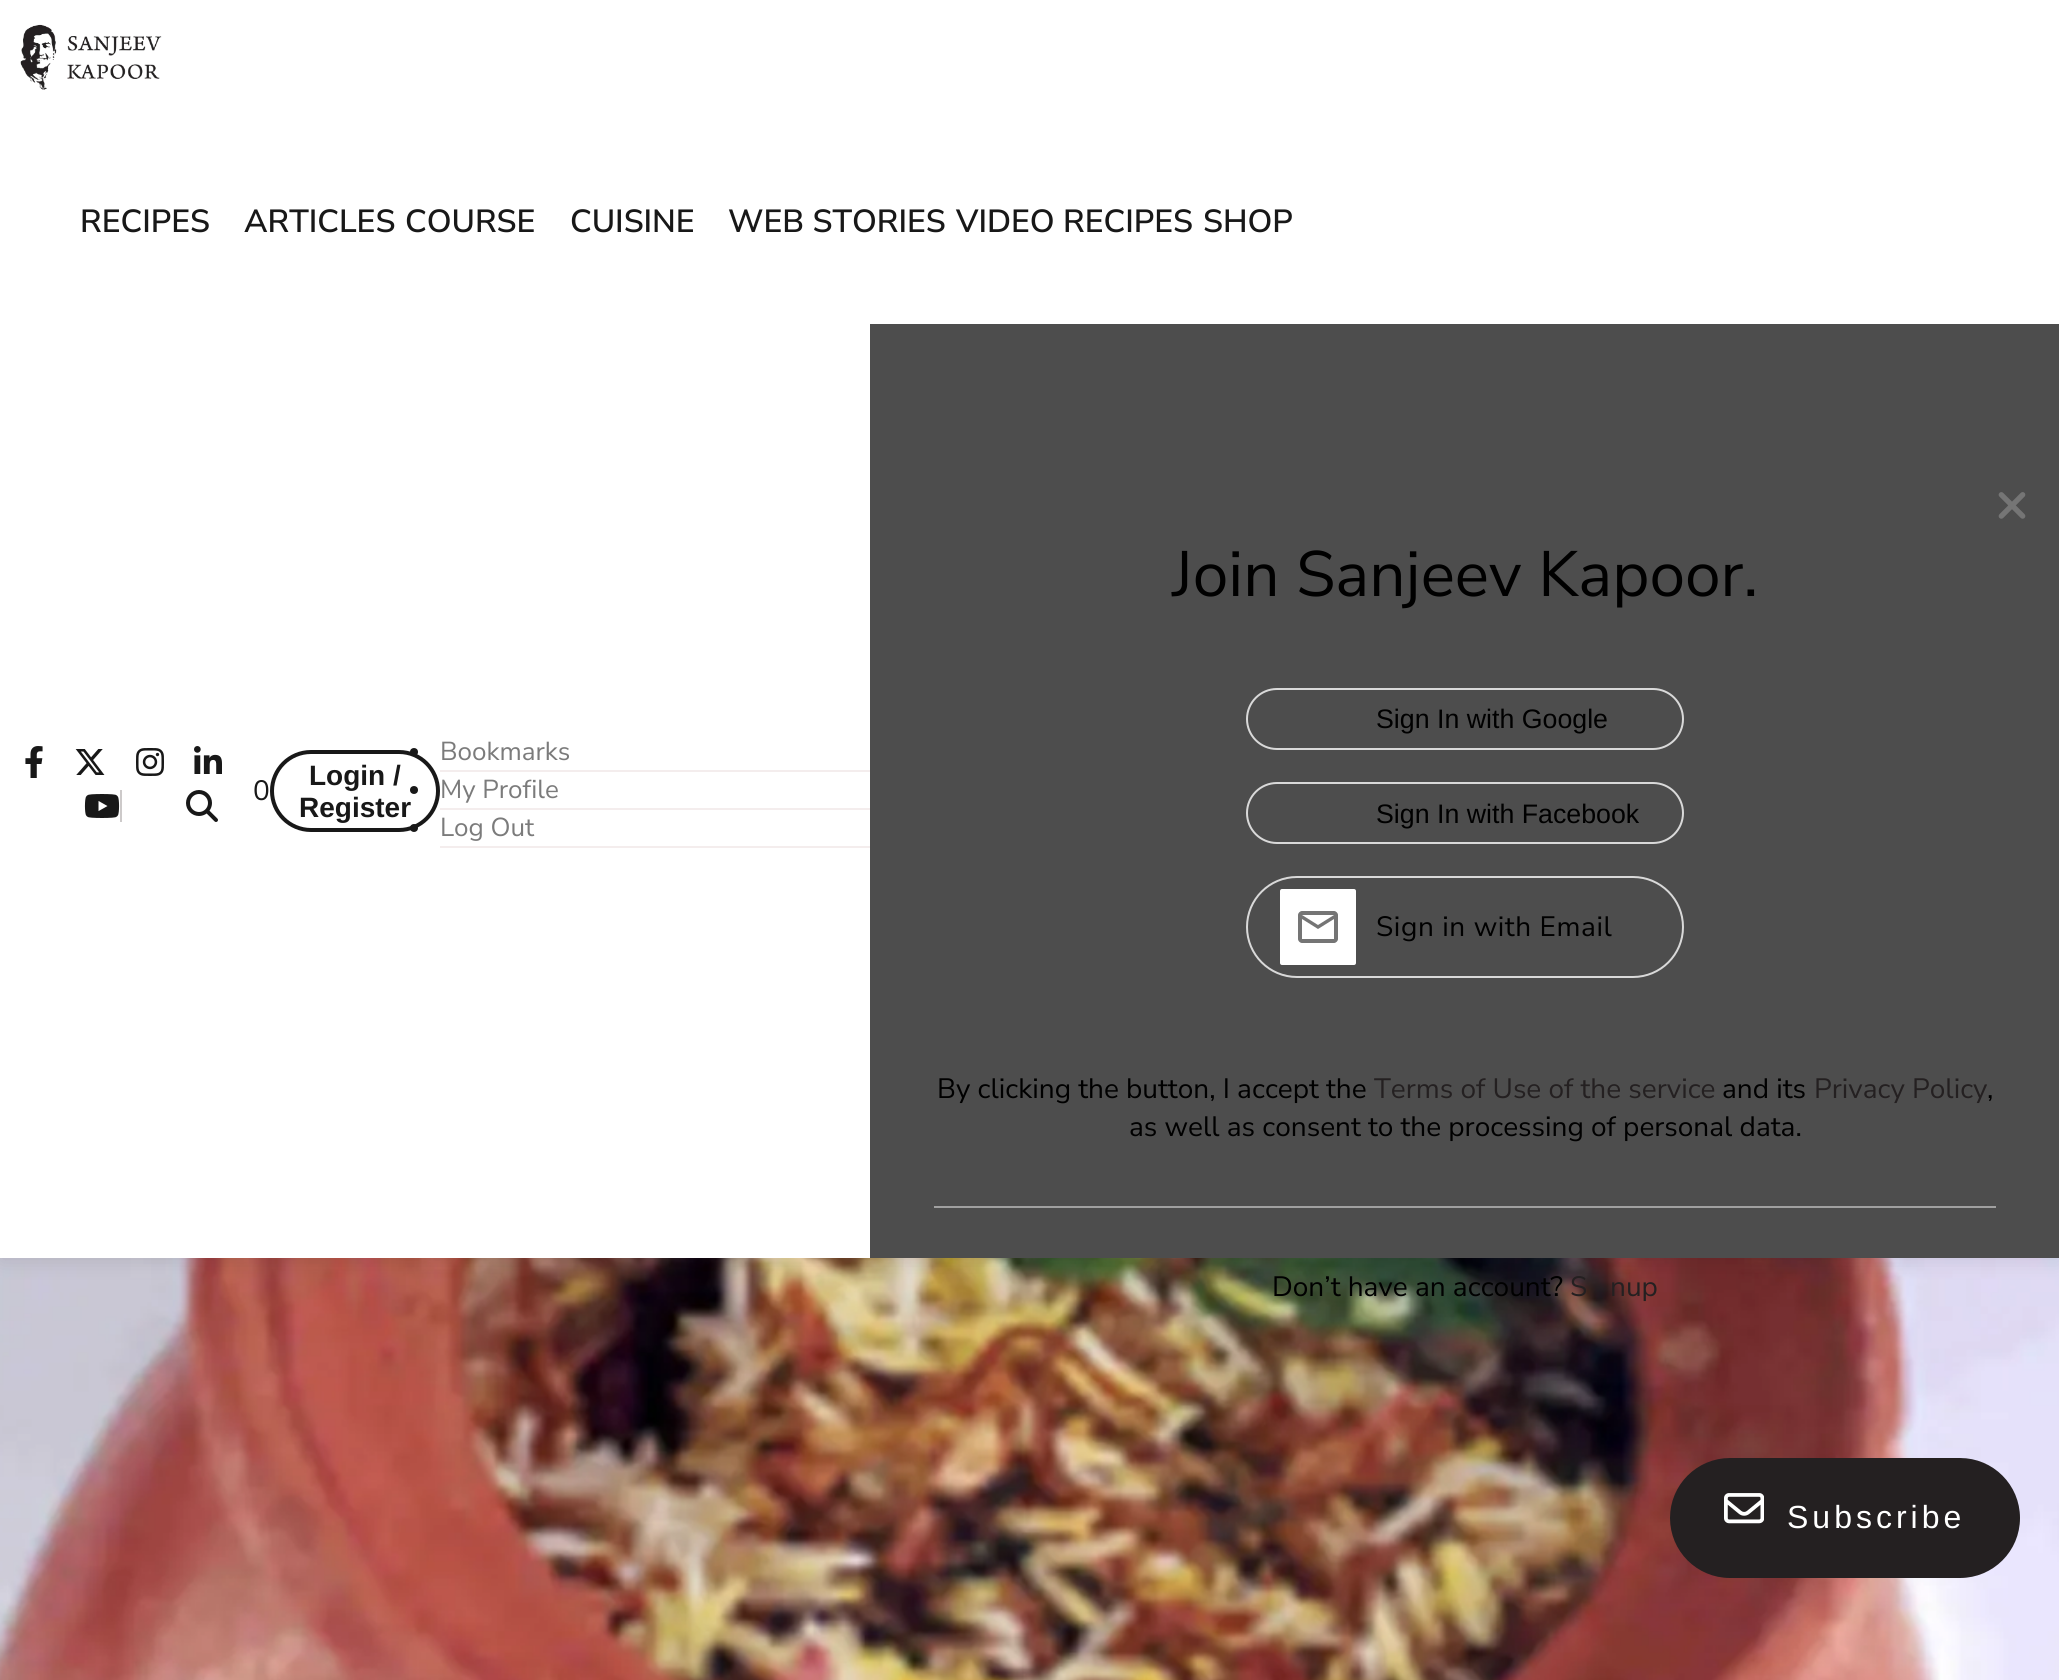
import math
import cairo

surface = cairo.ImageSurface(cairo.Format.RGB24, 2059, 1680)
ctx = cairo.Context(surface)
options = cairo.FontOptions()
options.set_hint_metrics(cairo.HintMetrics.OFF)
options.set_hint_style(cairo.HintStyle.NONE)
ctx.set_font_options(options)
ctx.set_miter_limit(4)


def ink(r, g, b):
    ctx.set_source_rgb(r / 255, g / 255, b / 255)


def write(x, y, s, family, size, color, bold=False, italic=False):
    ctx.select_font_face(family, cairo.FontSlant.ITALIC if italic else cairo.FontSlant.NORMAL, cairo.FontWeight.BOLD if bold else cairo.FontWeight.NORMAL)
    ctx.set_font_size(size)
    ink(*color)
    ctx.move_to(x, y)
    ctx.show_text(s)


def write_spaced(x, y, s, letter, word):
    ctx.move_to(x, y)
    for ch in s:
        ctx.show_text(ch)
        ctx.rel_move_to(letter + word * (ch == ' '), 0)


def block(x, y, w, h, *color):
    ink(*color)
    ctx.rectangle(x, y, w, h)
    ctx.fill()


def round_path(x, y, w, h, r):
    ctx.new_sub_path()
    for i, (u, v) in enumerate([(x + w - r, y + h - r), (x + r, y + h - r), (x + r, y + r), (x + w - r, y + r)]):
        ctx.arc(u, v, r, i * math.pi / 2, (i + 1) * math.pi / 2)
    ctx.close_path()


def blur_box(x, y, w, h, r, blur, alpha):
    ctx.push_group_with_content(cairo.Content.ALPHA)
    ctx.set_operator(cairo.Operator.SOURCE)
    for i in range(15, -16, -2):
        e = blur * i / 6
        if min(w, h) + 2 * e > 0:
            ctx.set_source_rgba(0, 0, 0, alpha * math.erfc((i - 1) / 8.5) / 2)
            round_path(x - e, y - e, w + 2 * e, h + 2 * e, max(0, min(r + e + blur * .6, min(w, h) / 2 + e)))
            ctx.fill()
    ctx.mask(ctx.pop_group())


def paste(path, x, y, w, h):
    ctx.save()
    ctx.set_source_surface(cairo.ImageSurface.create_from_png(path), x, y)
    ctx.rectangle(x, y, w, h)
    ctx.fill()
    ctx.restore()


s1 = dict(family="Nunito Sans SemiBold", size=32, color=(24, 24, 24))
s2 = dict(family="Nunito Sans", size=28, color=(24, 24, 24))
s3 = dict(family="Liberation Sans", size=28, color=(24, 24, 24), bold=True)
s4 = dict(family="Nunito Sans", size=26, color=(123, 123, 123))
s5 = dict(family="Nunito Sans", size=64, color=(0, 0, 0))
s6 = dict(family="Liberation Sans", size=26.75, color=(0, 0, 0))
s7 = dict(family="Nunito Sans", size=28, color=(0, 0, 0))
s8 = dict(family="Nunito Sans", size=28, color=(36, 32, 33))

ink(255, 255, 255)
ctx.paint()
paste("pic9.png", 0, 1258, 2059, 422)
ink(0, 0, 0)
blur_box(0, 4, 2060, 1258, 0, 10, 0.1)
block(0, 0, 2059, 1258, 255, 255, 255)
paste("pic1.png", 20, 24, 142, 66)
write(80, 232, "RECIPES", **s1)
write(244, 232, "ARTICLES", **s1)
write(405, 232, "COURSE", **s1)
write(570, 232, "CUISINE", **s1)
write(728, 232, "WEB STORIES", **s1)
write(956, 232, "VIDEO RECIPES", **s1)
write(1203, 232, "SHOP", **s1)
paste("pic2.png", 25, 746, 18, 32)
paste("pic3.png", 75, 749, 30, 26)
paste("pic4.png", 136, 748, 28, 28)
paste("pic5.png", 194, 746, 28, 28)
paste("pic6.png", 84, 794, 36, 24)
block(120, 790, 2, 32, 205, 202, 202)
paste("pic7.png", 186, 790, 32, 32)
write(253, 800, "0", **s2)
round_path(272, 752, 166, 78, 39)
ctx.set_line_width(4)
ctx.stroke()
write(309, 785, "Login /", **s3)
write(299, 817, "Register", **s3)
ctx.new_path()
ctx.arc(414, 752, 4, 0, 2 * math.pi)
ctx.fill()
block(440, 770, 430, 2, 244, 237, 237)
write(440, 760, "Bookmarks", **s4)
ink(24, 24, 24)
ctx.new_path()
ctx.arc(414, 790, 4, 0, 2 * math.pi)
ctx.fill()
block(440, 808, 430, 2, 244, 237, 237)
write(440, 798, "My Profile", **s4)
ink(24, 24, 24)
ctx.new_path()
ctx.arc(414, 828, 4, 0, 2 * math.pi)
ctx.fill()
block(440, 846, 430, 2, 244, 237, 237)
write(440, 836, "Log Out", **s4)
block(870, 324, 1189, 934, 77, 77, 77)
paste("pic8.png", 1998, 492, 28, 27)
write(1172, 596, "Join Sanjeev Kapoor.", **s5)
round_path(1247, 689, 436, 60, 30)
ink(217, 217, 217)
ctx.set_line_width(2)
ctx.stroke()
write(1376, 728, "Sign In with Google", **s6)
round_path(1247, 783, 436, 60, 30)
ink(217, 217, 217)
ctx.stroke()
write(1376, 823, "Sign In with Facebook", **s6)
round_path(1247, 877, 436, 100, 50)
ink(217, 217, 217)
ctx.stroke()
ink(255, 255, 255)
round_path(1280, 889, 76, 76, 2)
ctx.fill()
ink(117, 117, 117)
ctx.new_path()
ctx.move_to(1338, 915)
ctx.curve_to(1338, 913, 1336, 911, 1334, 911)
ctx.line_to(1302, 911)
ctx.curve_to(1300, 911, 1298, 913, 1298, 915)
ctx.line_to(1298, 939)
ctx.curve_to(1298, 941, 1300, 943, 1302, 943)
ctx.line_to(1334, 943)
ctx.curve_to(1336, 943, 1338, 941, 1338, 939)
ctx.close_path()
ctx.move_to(1334, 915)
ctx.line_to(1318, 925)
ctx.line_to(1302, 915)
ctx.close_path()
ctx.move_to(1334, 939)
ctx.line_to(1302, 939)
ctx.line_to(1302, 919)
ctx.line_to(1318, 929)
ctx.line_to(1334, 919)
ctx.close_path()
ctx.fill()
ctx.select_font_face("Nunito Sans")
ctx.set_font_size(28)
ink(0, 0, 0)
write_spaced(1376, 936, "Sign in with Email", 0.6, 0)
write(937, 1098, "By clicking the button, I accept the", **s7)
write(1374, 1098, "Terms of Use of the service", **s8)
write(1722, 1098, "and its", **s7)
write(1814, 1098, "Privacy Policy", **s8)
write(1987, 1098, ",", **s7)
write(1129, 1136, "as well as consent to the processing of personal data.", **s7)
block(934, 1206, 1062, 2, 160, 160, 160)
write(1272, 1296, "Don’t have an account?", **s7)
write(1570, 1296, "S", **s8)
write(1610, 1296, "nup", **s8)
round_path(1673, 1461, 344, 114, 57)
ctx.fill_preserve()
ctx.set_line_width(6)
ctx.stroke()
paste("pic10.png", 1724, 1493, 40, 31)
ctx.select_font_face("Liberation Sans")
ctx.set_font_size(32)
ink(255, 255, 255)
write_spaced(1787, 1528, "Subscribe", 4, 0)
surface.write_to_png("screenshot.png")
